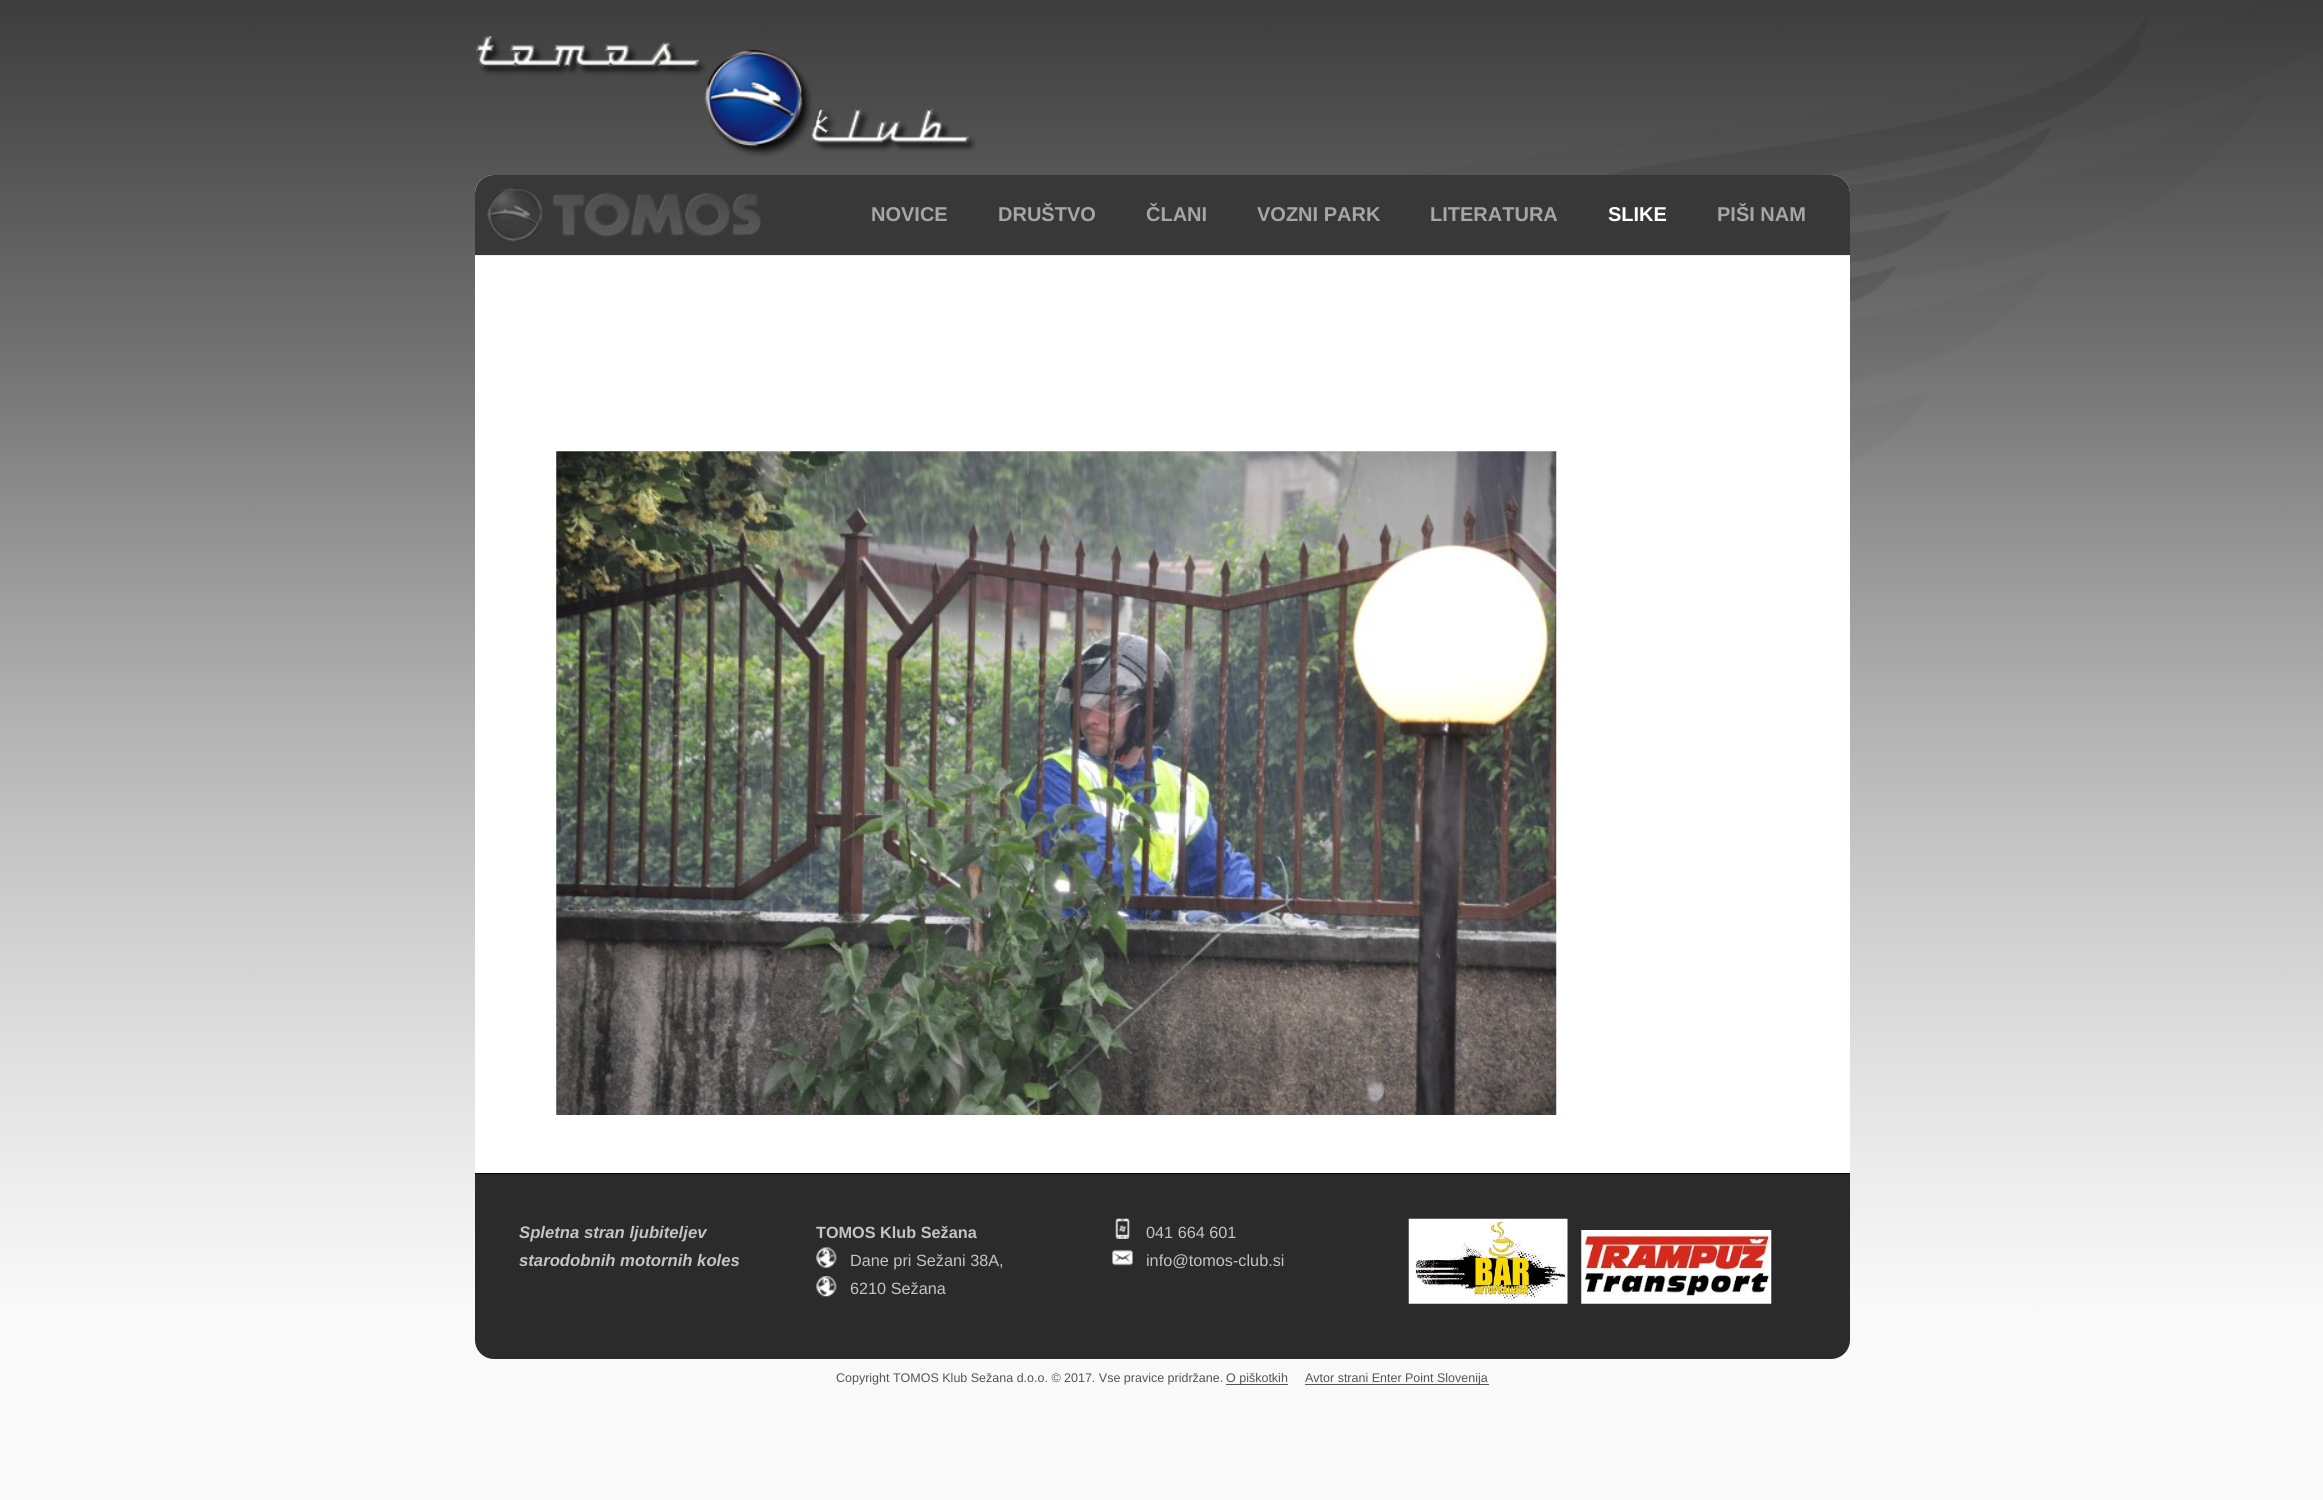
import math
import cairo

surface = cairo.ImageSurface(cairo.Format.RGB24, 2323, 1500)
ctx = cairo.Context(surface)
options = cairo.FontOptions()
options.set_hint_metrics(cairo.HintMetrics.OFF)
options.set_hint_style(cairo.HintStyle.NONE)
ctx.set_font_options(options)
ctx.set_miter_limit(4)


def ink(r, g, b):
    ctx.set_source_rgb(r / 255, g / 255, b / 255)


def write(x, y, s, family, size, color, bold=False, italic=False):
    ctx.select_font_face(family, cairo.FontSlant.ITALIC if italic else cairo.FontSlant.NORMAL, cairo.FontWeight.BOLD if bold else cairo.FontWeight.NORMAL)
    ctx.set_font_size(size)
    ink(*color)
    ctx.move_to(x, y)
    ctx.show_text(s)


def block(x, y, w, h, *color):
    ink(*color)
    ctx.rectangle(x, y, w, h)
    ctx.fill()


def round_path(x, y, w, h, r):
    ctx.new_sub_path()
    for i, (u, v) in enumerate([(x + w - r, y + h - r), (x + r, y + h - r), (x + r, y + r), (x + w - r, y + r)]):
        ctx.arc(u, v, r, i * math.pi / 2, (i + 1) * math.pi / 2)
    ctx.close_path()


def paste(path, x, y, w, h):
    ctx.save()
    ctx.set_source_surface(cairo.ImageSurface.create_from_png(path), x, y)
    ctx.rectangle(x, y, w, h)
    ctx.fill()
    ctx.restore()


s1 = dict(family="Liberation Sans", size=20, color=(166, 166, 166), bold=True)
s2 = dict(family="Liberation Sans", size=20, color=(255, 255, 255), bold=True)
s3 = dict(family="Liberation Sans", size=16.7, color=(196, 196, 196), bold=True, italic=True)
s4 = dict(family="Liberation Sans", size=16.25, color=(196, 196, 196), bold=True)
s5 = dict(family="Liberation Sans", size=16.25, color=(196, 196, 196))
s6 = dict(family="Liberation Sans", size=12.5, color=(84, 84, 84))

ink(255, 255, 255)
ctx.paint()
paste("pic1.png", 0, 0, 2323, 1500)
ink(255, 255, 255)
round_path(475, 175, 1375, 1184, 19)
ctx.fill()
ink(56, 56, 56)
ctx.new_path()
ctx.move_to(494, 175)
ctx.line_to(1831, 175)
ctx.curve_to(1841.5, 175, 1850, 183.5, 1850, 194)
ctx.line_to(1850, 256)
ctx.line_to(475, 256)
ctx.line_to(475, 194)
ctx.curve_to(475, 183.5, 483.5, 175, 494, 175)
ctx.close_path()
ctx.fill()
block(475, 255, 1375, 1, 237, 237, 237)
paste("pic2.png", 476, 36, 500, 121)
paste("pic3.png", 487, 187, 275, 55)
write(871, 221, "NOVICE", **s1)
write(998, 221, "DRUŠTVO", **s1)
write(1146, 221, "ČLANI", **s1)
write(1257, 221, "VOZNI PARK", **s1)
write(1430, 221, "LITERATURA", **s1)
write(1608, 221, "SLIKE", **s2)
write(1717, 221, "PIŠI NAM", **s1)
paste("pic4.png", 556, 451, 1001, 664)
ink(43, 43, 43)
ctx.new_path()
ctx.move_to(475, 1173)
ctx.line_to(1850, 1173)
ctx.line_to(1850, 1340)
ctx.curve_to(1850, 1350.5, 1841.5, 1359, 1831, 1359)
ctx.line_to(494, 1359)
ctx.curve_to(483.5, 1359, 475, 1350.5, 475, 1340)
ctx.close_path()
ctx.fill()
block(475, 1173, 1375, 1, 0, 0, 0)
write(519, 1238, "Spletna stran ljubiteljev", **s3)
write(519, 1266, "starodobnih motornih koles", **s3)
write(816, 1238, "TOMOS Klub Sežana", **s4)
paste("pic5.png", 816, 1247, 21, 21)
write(850, 1266, "Dane pri Sežani 38A,", **s5)
paste("pic6.png", 816, 1276, 21, 21)
write(850, 1294, "6210 Sežana", **s5)
paste("pic7.png", 1115, 1218, 16, 21)
write(1146, 1238, "041 664 601", **s5)
paste("pic8.png", 1112, 1249, 21, 17)
write(1146, 1266, "info@tomos-club.si", **s5)
paste("pic9.png", 1408, 1218, 160, 86)
paste("pic10.png", 1581, 1230, 191, 74)
write(836, 1382, "Copyright TOMOS Klub Sežana d.o.o. © 2017. Vse pravice pridržane.", **s6)
block(1226, 1384, 62, 1, 84, 84, 84)
write(1226, 1382, "O piškotkih", **s6)
block(1305, 1384, 184, 1, 84, 84, 84)
write(1305, 1382, "Avtor strani Enter Point Slovenija", **s6)
surface.write_to_png("screenshot.png")
